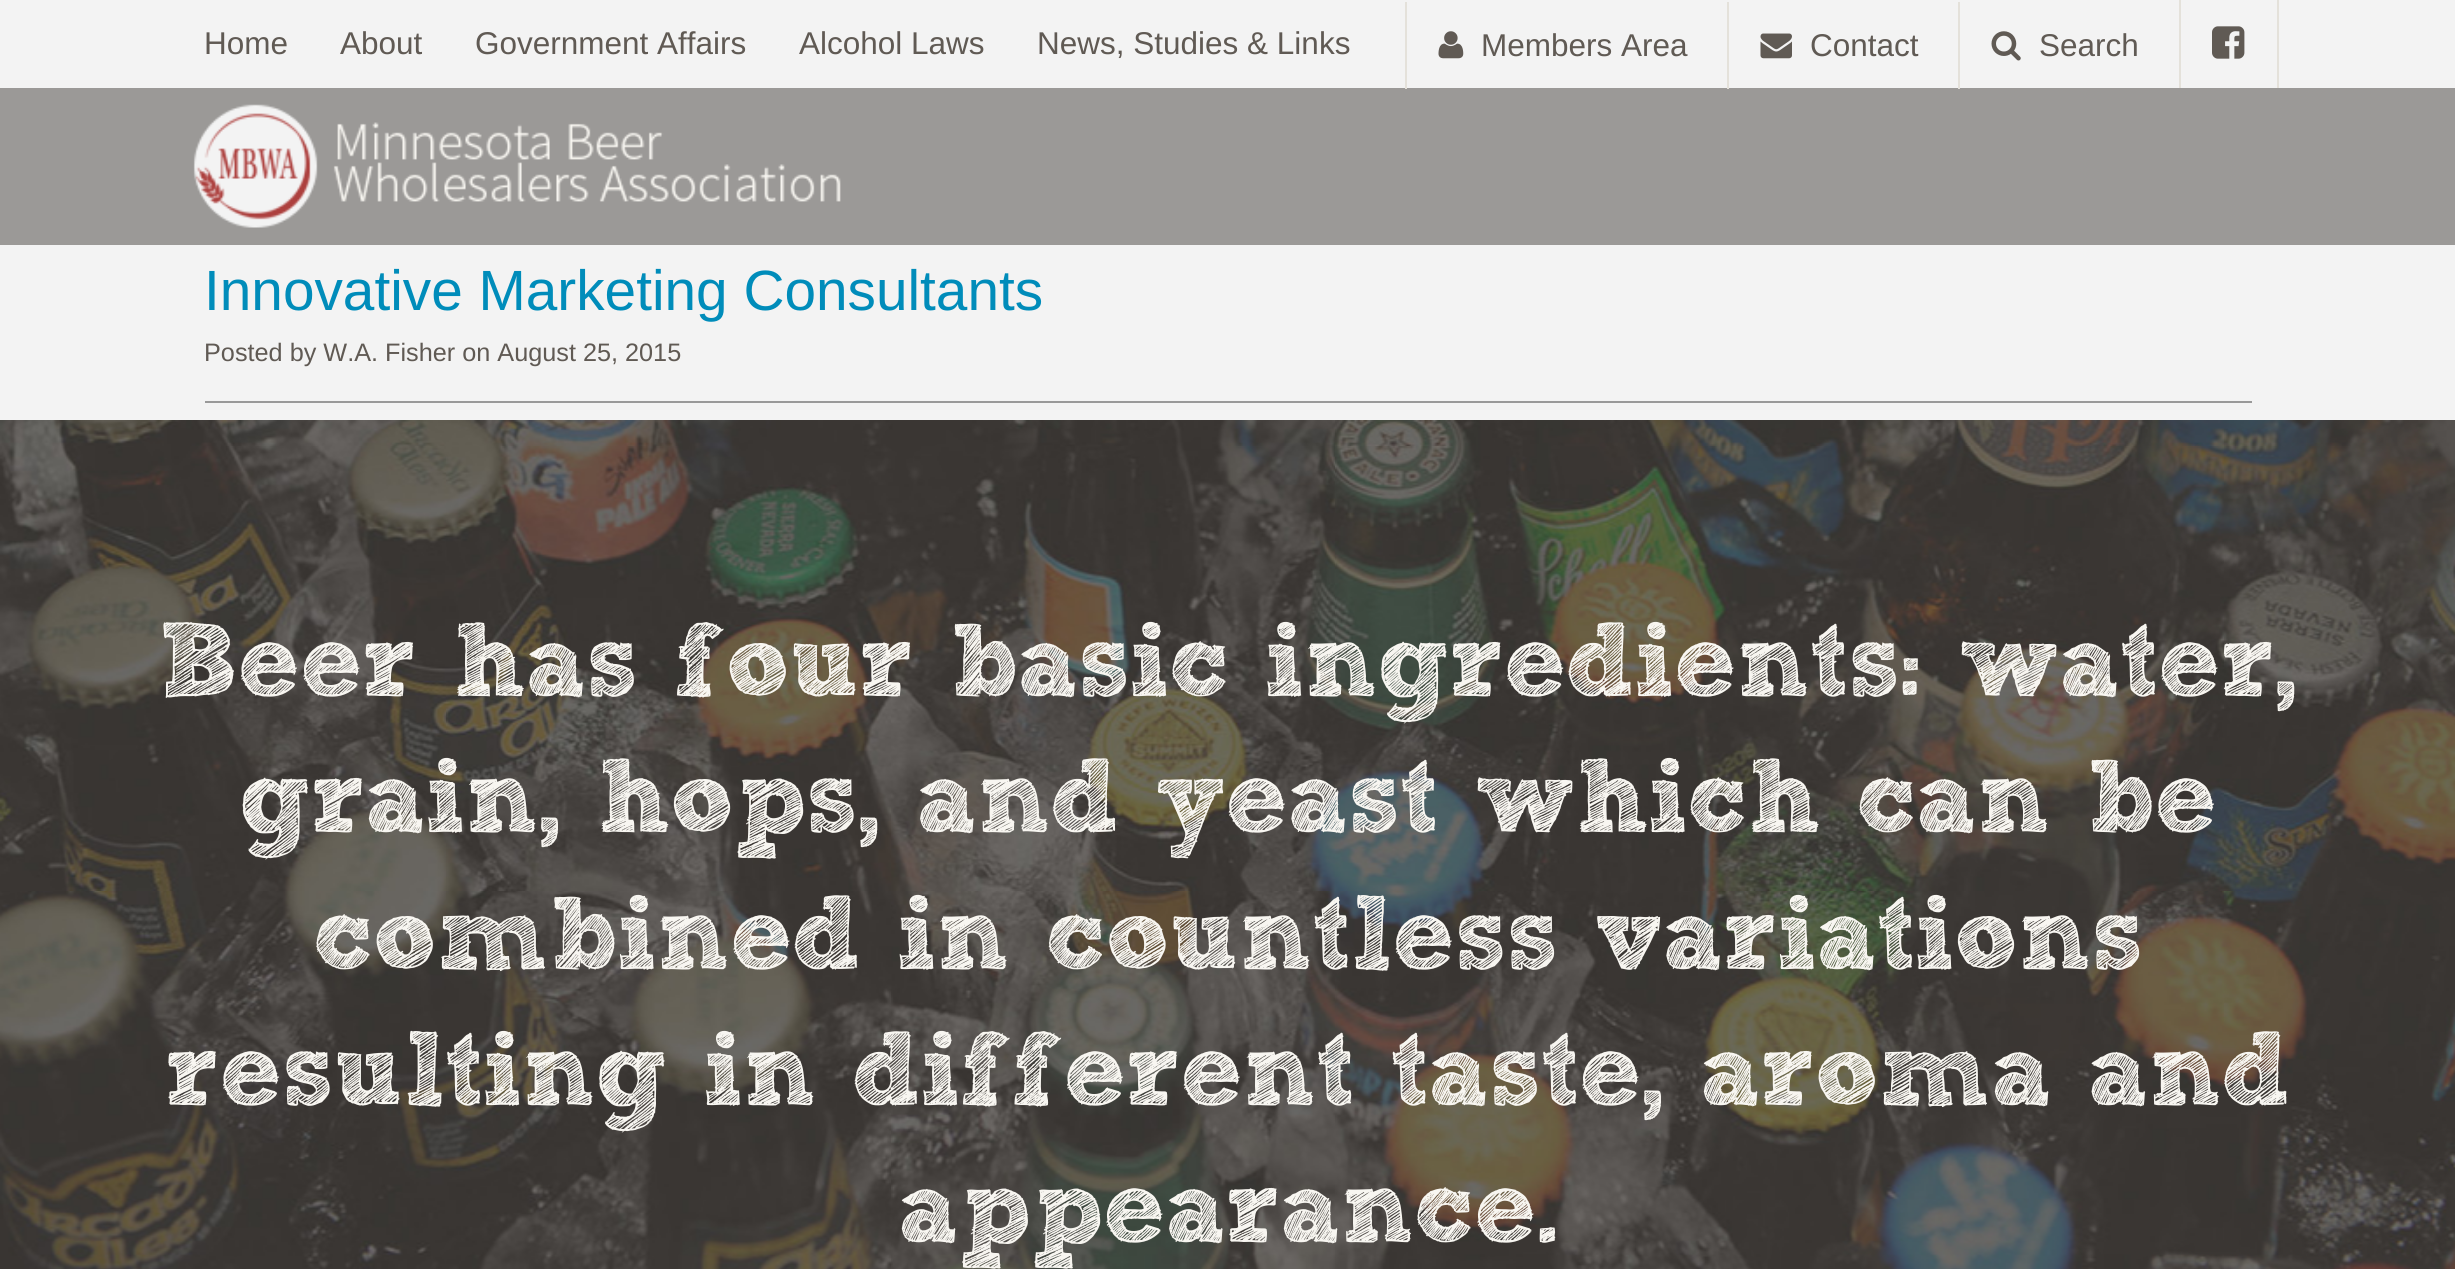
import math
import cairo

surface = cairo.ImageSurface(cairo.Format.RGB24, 2455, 1269)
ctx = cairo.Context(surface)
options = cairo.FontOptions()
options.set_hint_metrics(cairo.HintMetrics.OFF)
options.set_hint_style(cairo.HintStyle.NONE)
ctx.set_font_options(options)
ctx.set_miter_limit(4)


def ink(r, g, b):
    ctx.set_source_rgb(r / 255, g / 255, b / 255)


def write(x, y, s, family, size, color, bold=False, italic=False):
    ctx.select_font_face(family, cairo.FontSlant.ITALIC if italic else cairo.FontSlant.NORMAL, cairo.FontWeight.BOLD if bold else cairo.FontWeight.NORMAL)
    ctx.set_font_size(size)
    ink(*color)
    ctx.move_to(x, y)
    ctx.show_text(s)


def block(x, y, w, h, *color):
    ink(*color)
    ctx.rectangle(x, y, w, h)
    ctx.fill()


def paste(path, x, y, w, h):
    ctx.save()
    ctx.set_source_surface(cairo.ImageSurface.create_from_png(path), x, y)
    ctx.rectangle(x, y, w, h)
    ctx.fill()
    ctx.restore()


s1 = dict(family="Liberation Sans", size=31.5, color=(96, 90, 84))
s2 = dict(family="Liberation Sans", size=56.75, color=(0, 140, 186))
s3 = dict(family="Liberation Sans", size=25.25, color=(96, 90, 84))
s4 = dict(family="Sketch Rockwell", size=105, color=(248, 246, 241), bold=True)

ink(243, 243, 243)
ctx.paint()
write(204, 54, "Home", **s1)
write(340, 54, "About", **s1)
write(475, 54, "Government Affairs", **s1)
write(799, 54, "Alcohol Laws", **s1)
write(1037, 54, "News, Studies & Links", **s1)
block(0, 88, 2455, 157, 155, 153, 151)
block(1405, 2, 2, 87, 228, 225, 218)
paste("pic1.png", 1438, 31, 26, 28)
write(1481, 56, "Members Area", **s1)
block(1727, 2, 2, 87, 228, 225, 218)
paste("pic2.png", 1760, 33, 32, 26)
write(1810, 56, "Contact", **s1)
block(1958, 2, 2, 87, 228, 225, 218)
paste("pic3.png", 1991, 31, 30, 30)
write(2039, 56, "Search", **s1)
block(2277, 0, 2, 88, 228, 225, 218)
block(2179, 0, 2, 88, 228, 225, 218)
paste("pic4.png", 2212, 26, 33, 33)
paste("pic5.png", 193, 104, 648, 124)
block(205, 401, 2047, 2, 153, 153, 153)
write(204, 310, "Innovative Marketing Consultants", **s2)
write(204, 361, "Posted by W.A. Fisher on August 25, 2015", **s3)
paste("pic6.png", 0, 420, 2455, 849)
write(158, 696, "Beer has four basic ingredients:", **s4)
write(1958, 696, "water,", **s4)
write(239, 832, "grain, hops, and yeast which can be", **s4)
write(313, 969, "combined in countless variations", **s4)
write(165, 1105, "resulting in different taste, aroma and", **s4)
write(898, 1242, "appearance.", **s4)
surface.write_to_png("screenshot.png")
